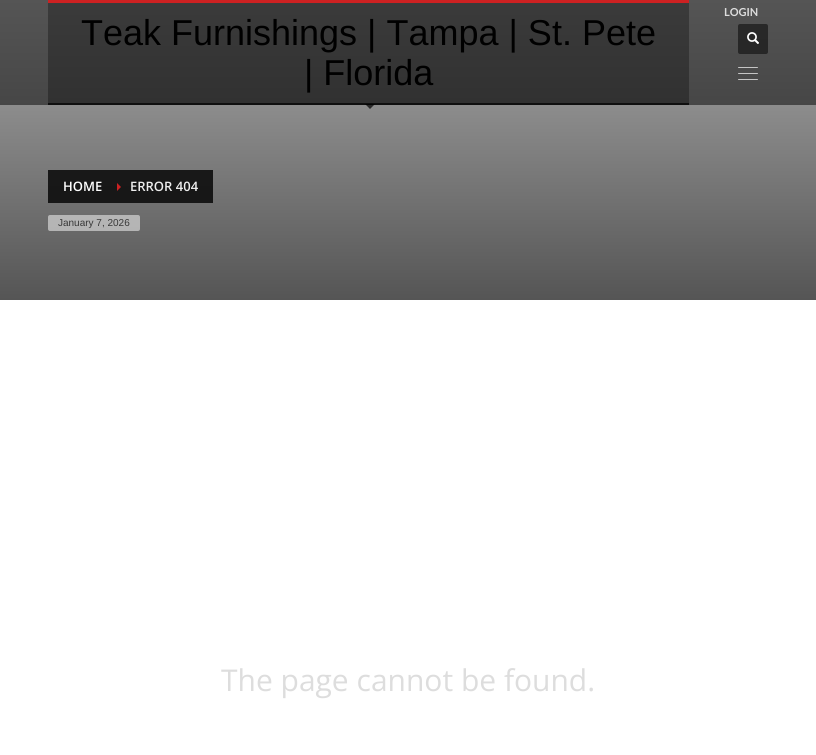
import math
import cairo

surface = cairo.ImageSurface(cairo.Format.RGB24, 816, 755)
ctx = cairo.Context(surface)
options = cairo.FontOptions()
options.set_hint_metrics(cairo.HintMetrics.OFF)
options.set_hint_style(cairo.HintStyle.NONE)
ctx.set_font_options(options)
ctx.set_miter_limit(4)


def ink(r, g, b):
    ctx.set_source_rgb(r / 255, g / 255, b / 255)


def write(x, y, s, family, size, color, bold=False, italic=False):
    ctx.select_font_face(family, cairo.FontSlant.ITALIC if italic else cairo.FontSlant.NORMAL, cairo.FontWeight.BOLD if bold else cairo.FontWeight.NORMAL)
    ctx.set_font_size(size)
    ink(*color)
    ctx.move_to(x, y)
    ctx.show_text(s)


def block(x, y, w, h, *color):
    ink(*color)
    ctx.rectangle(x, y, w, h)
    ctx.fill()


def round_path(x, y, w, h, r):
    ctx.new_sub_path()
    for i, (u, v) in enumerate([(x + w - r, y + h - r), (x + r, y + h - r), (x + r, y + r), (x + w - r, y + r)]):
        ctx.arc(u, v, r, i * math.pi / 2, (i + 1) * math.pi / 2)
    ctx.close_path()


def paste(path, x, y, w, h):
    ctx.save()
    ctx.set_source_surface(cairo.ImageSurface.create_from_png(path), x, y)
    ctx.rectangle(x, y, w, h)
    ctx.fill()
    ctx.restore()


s1 = dict(family="Lato", size=11, color=(221, 221, 221), bold=True)
s2 = dict(family="Liberation Sans", size=36, color=(0, 0, 0))
s3 = dict(family="Open Sans SemiBold", size=13, color=(255, 255, 255))
s4 = dict(family="Open Sans SemiBold", size=13, color=(238, 238, 238))
s5 = dict(family="Liberation Sans", size=10, color=(56, 56, 56))
s6 = dict(family="Open Sans", size=30, color=(221, 221, 221))

ink(255, 255, 255)
ctx.paint()
gradient = cairo.LinearGradient(408, 0, 408, 300)
gradient.add_color_stop_rgba(0, 0.333, 0.333, 0.333, 1)
gradient.add_color_stop_rgba(1, 0.169, 0.169, 0.169, 1)
ctx.set_source(gradient)
ctx.rectangle(0, 0, 816, 105)
ctx.fill()
write(724, 16, "LOGIN", **s1)
ctx.set_source_rgba(0, 0, 0, 0.5)
round_path(738, 24, 30, 30, 2)
ctx.fill()
paste("pic1.png", 747, 32, 12, 12)
ink(197, 197, 197)
round_path(738, 67, 20, 1, 0.5)
ctx.fill()
round_path(738, 73, 20, 1, 0.5)
ctx.fill()
round_path(738, 79, 20, 1, 0.5)
ctx.fill()
block(48, 0, 641, 3, 205, 33, 34)
block(48, 103, 641, 2, 15, 15, 15)
gradient = cairo.LinearGradient(408, 0, 408, 300)
gradient.add_color_stop_rgba(0, 0.231, 0.231, 0.231, 1)
gradient.add_color_stop_rgba(1, 0.118, 0.118, 0.118, 1)
ctx.set_source(gradient)
ctx.rectangle(48, 3, 641, 100)
ctx.fill()
write(81, 45, "Teak Furnishings | Tampa | St. Pete", **s2)
write(304, 85, "| Florida", **s2)
gradient = cairo.LinearGradient(408, 0, 408, 300)
gradient.add_color_stop_rgba(0, 0.667, 0.667, 0.667, 1)
gradient.add_color_stop_rgba(1, 0.333, 0.333, 0.333, 1)
ctx.set_source(gradient)
ctx.rectangle(0, 105, 816, 195)
ctx.fill()
ctx.set_source_rgba(0, 0, 0, 0.7)
ctx.new_path()
ctx.move_to(365, 104)
ctx.line_to(375, 104)
ctx.line_to(370, 109)
ctx.close_path()
ctx.fill()
gradient = cairo.LinearGradient(408, 0, 408, 300)
gradient.add_color_stop_rgba(0, 0.133, 0.133, 0.133, 1)
gradient.add_color_stop_rgba(1, 0.067, 0.067, 0.067, 1)
ctx.set_source(gradient)
ctx.rectangle(107, 170, 106, 33)
ctx.fill()
ctx.rectangle(48, 170, 59, 33)
ctx.fill()
write(63, 191, "HOME", **s3)
ink(205, 33, 34)
ctx.new_path()
ctx.move_to(117, 191)
ctx.line_to(117, 183)
ctx.line_to(121, 187)
ctx.close_path()
ctx.fill()
write(130, 191, "ERROR 404", **s4)
ctx.set_source_rgba(1, 1, 1, 0.5)
round_path(48, 215, 92, 16, 2)
ctx.fill()
write(58, 226, "January 7, 2026", **s5)
write(221, 691, "The page cannot be found.", **s6)
surface.write_to_png("screenshot.png")
